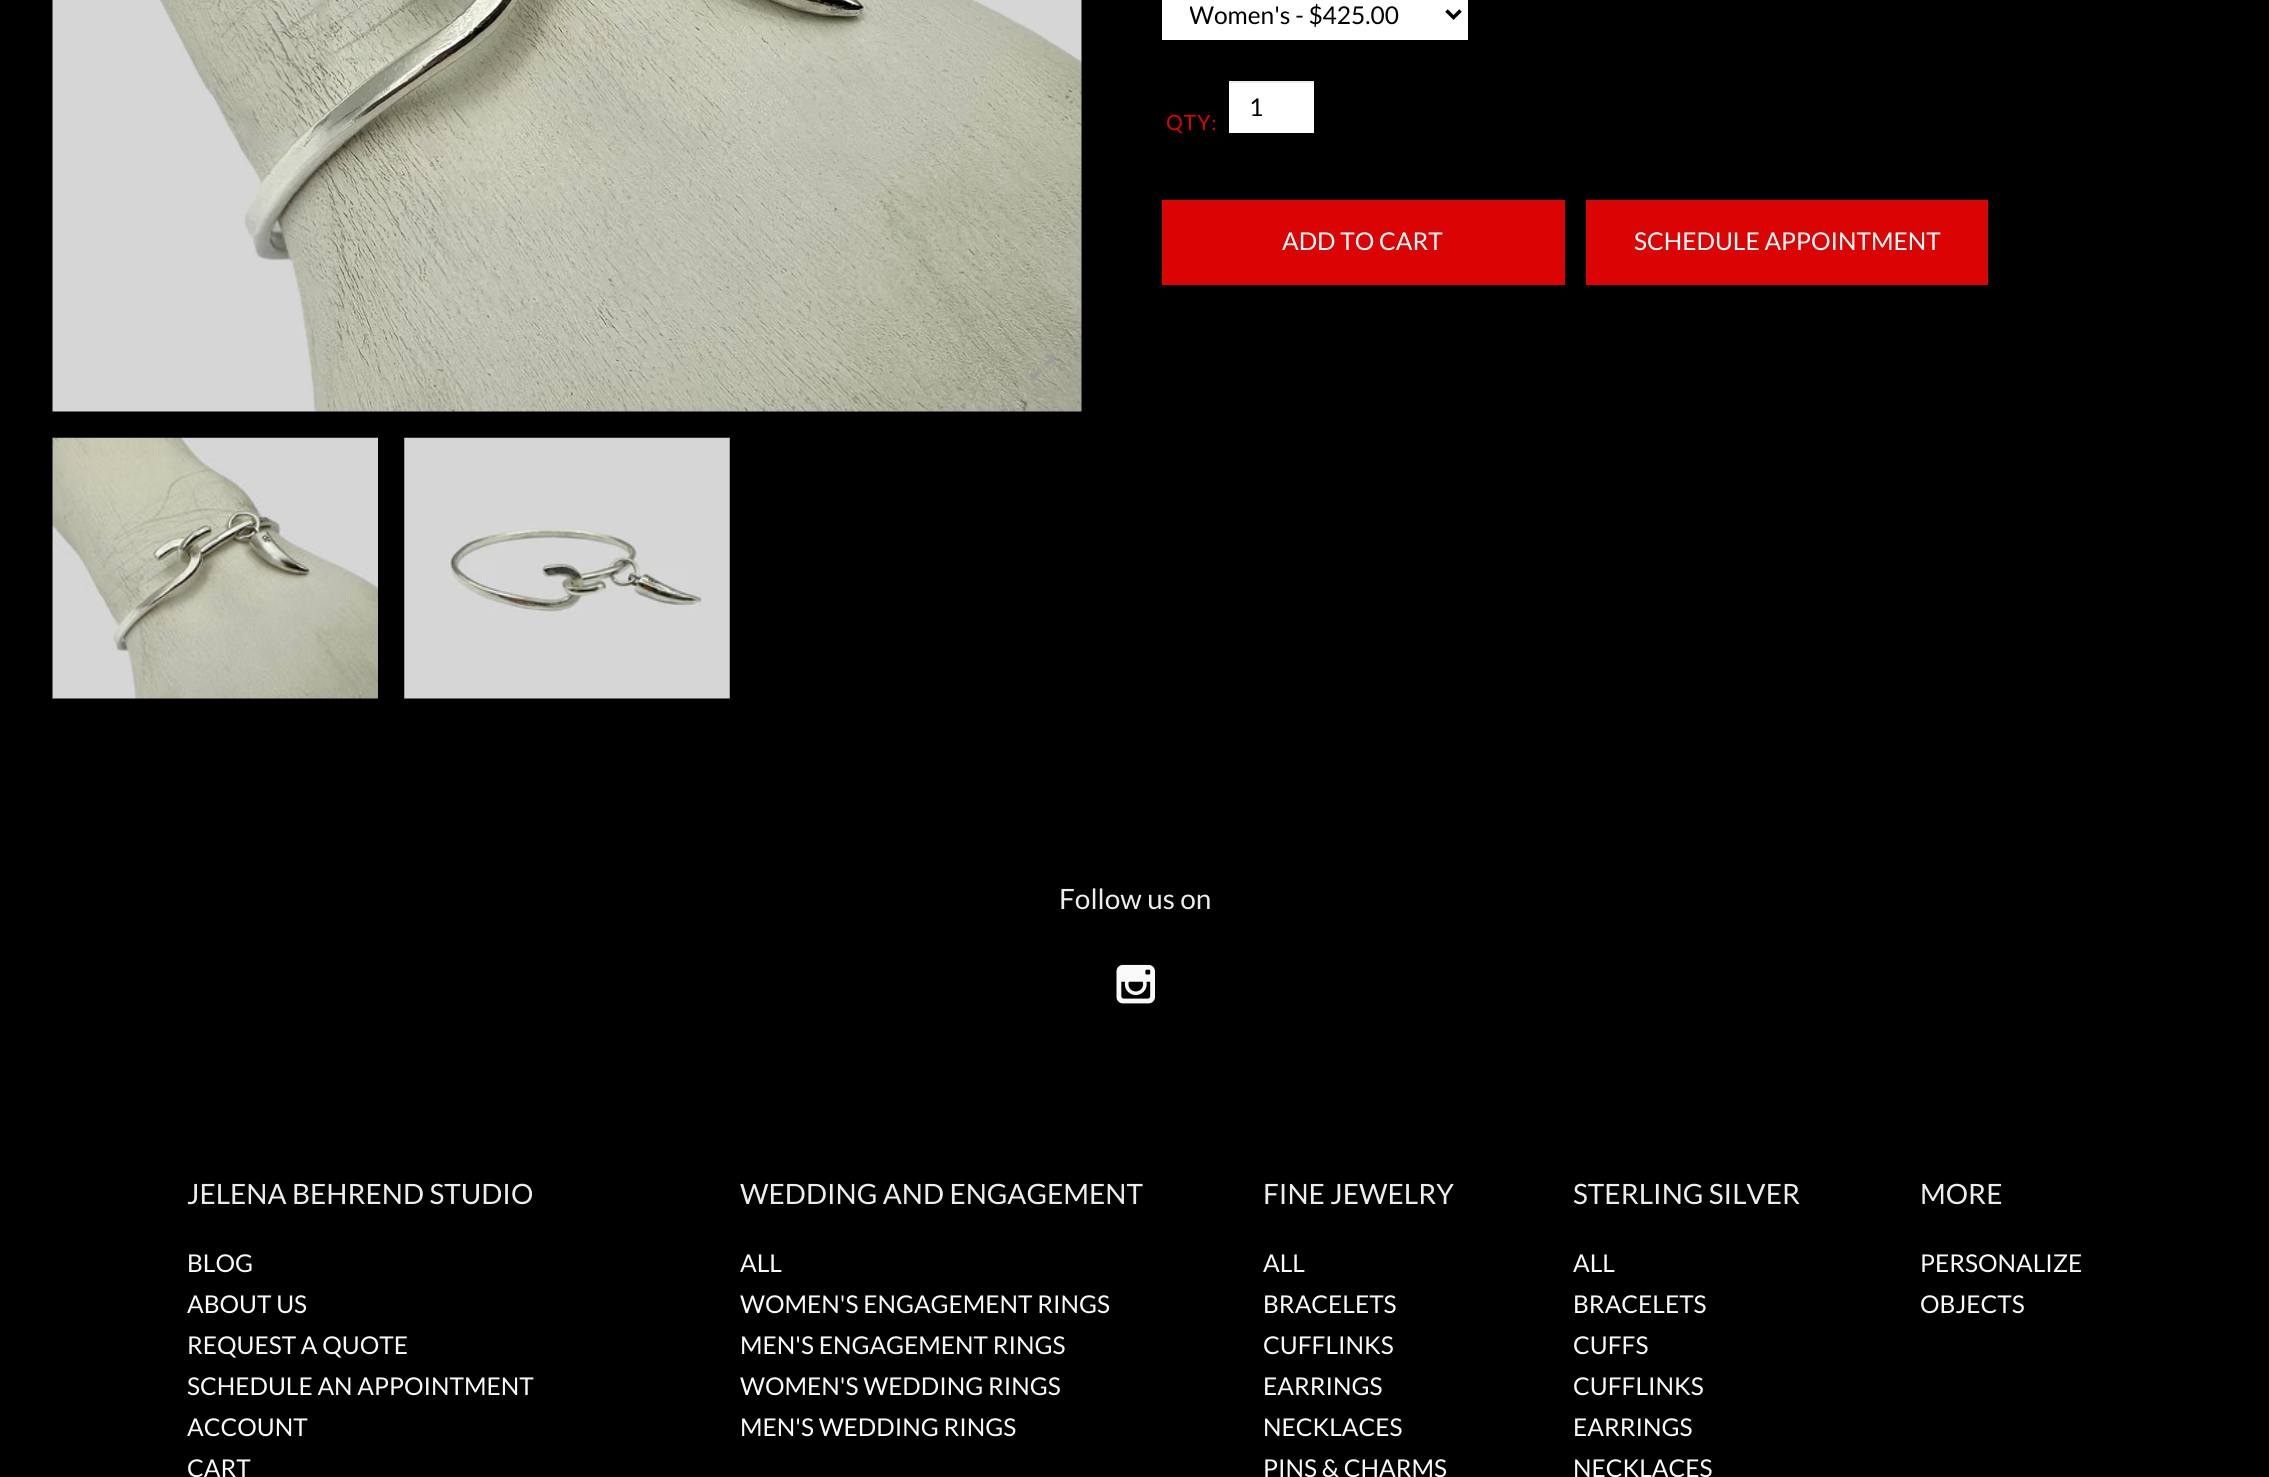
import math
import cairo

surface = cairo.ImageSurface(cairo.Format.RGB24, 2269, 1477)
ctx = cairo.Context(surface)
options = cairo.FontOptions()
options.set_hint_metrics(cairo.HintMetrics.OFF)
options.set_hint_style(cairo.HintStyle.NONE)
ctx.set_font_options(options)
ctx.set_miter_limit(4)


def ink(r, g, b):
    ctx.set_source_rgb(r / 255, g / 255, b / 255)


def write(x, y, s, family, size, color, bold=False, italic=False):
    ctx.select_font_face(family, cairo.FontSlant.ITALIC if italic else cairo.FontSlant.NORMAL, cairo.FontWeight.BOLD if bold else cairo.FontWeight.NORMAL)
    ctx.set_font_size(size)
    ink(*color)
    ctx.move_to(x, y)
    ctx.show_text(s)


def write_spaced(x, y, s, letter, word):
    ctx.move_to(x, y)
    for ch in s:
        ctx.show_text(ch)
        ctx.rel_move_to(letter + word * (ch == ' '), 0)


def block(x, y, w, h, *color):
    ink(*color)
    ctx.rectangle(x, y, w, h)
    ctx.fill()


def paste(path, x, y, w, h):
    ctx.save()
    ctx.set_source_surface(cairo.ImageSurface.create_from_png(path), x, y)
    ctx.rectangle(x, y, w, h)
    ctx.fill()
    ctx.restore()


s1 = dict(family="Lato", size=24.5, color=(0, 0, 0))
s2 = dict(family="Lato", size=24.5, color=(255, 255, 255))
s3 = dict(family="Lato", size=28, color=(237, 237, 237))
s4 = dict(family="Lato", size=24.5, color=(249, 249, 249))

ink(0, 0, 0)
ctx.paint()
paste("pic1.png", 52, 0, 1030, 412)
paste("pic2.png", 1030, 355, 26, 25)
paste("pic3.png", 52, 437, 326, 262)
paste("pic4.png", 404, 437, 326, 262)
block(1162, 0, 306, 40, 255, 255, 255)
ctx.new_path()
ctx.move_to(1446.5, 10.5)
ctx.line_to(1453.5, 17.5)
ctx.line_to(1460.5, 10.5)
ink(0, 0, 0)
ctx.set_line_width(3.5)
ctx.stroke()
ctx.save()
ctx.rectangle(1190, 0, 229, 32)
ctx.clip()
write(1189, 24, "Women's - $425.00", **s1)
ctx.restore()
block(1229, 83, 85, 50, 255, 255, 255)
block(1229, 81, 85, 2, 236, 236, 236)
write(1249, 116, "1", **s1)
ctx.set_font_size(21)
ink(218, 4, 4)
write_spaced(1166, 130, "QTY:", 1, 0)
block(1162, 200, 403, 85, 218, 4, 4)
write(1282, 250, "ADD TO CART", **s2)
block(1586, 200, 402, 85, 218, 4, 4)
write(1634, 250, "SCHEDULE APPOINTMENT", **s2)
write(1059, 909, "Follow us on", **s3)
paste("pic5.png", 1116, 964, 39, 40)
write(187, 1204, "JELENA BEHREND STUDIO", **s3)
write(187, 1272, "BLOG", **s4)
write(187, 1313, "ABOUT US", **s4)
write(187, 1354, "REQUEST A QUOTE", **s4)
write(187, 1395, "SCHEDULE AN APPOINTMENT", **s4)
write(187, 1436, "ACCOUNT", **s4)
write(187, 1477, "CART", **s4)
write(740, 1204, "WEDDING AND ENGAGEMENT", **s3)
write(740, 1272, "ALL", **s4)
write(740, 1313, "WOMEN'S ENGAGEMENT RINGS", **s4)
write(740, 1354, "MEN'S ENGAGEMENT RINGS", **s4)
write(740, 1395, "WOMEN'S WEDDING RINGS", **s4)
write(740, 1436, "MEN'S WEDDING RINGS", **s4)
write(1263, 1204, "FINE JEWELRY", **s3)
write(1263, 1272, "ALL", **s4)
write(1263, 1313, "BRACELETS", **s4)
write(1263, 1354, "CUFFLINKS", **s4)
write(1263, 1395, "EARRINGS", **s4)
write(1263, 1436, "NECKLACES", **s4)
write(1263, 1477, "PINS & CHARMS", **s4)
write(1573, 1204, "STERLING SILVER", **s3)
write(1573, 1272, "ALL", **s4)
write(1573, 1313, "BRACELETS", **s4)
write(1573, 1354, "CUFFS", **s4)
write(1573, 1395, "CUFFLINKS", **s4)
write(1573, 1436, "EARRINGS", **s4)
write(1573, 1477, "NECKLACES", **s4)
write(1920, 1204, "MORE", **s3)
write(1920, 1272, "PERSONALIZE", **s4)
write(1920, 1313, "OBJECTS", **s4)
surface.write_to_png("screenshot.png")
